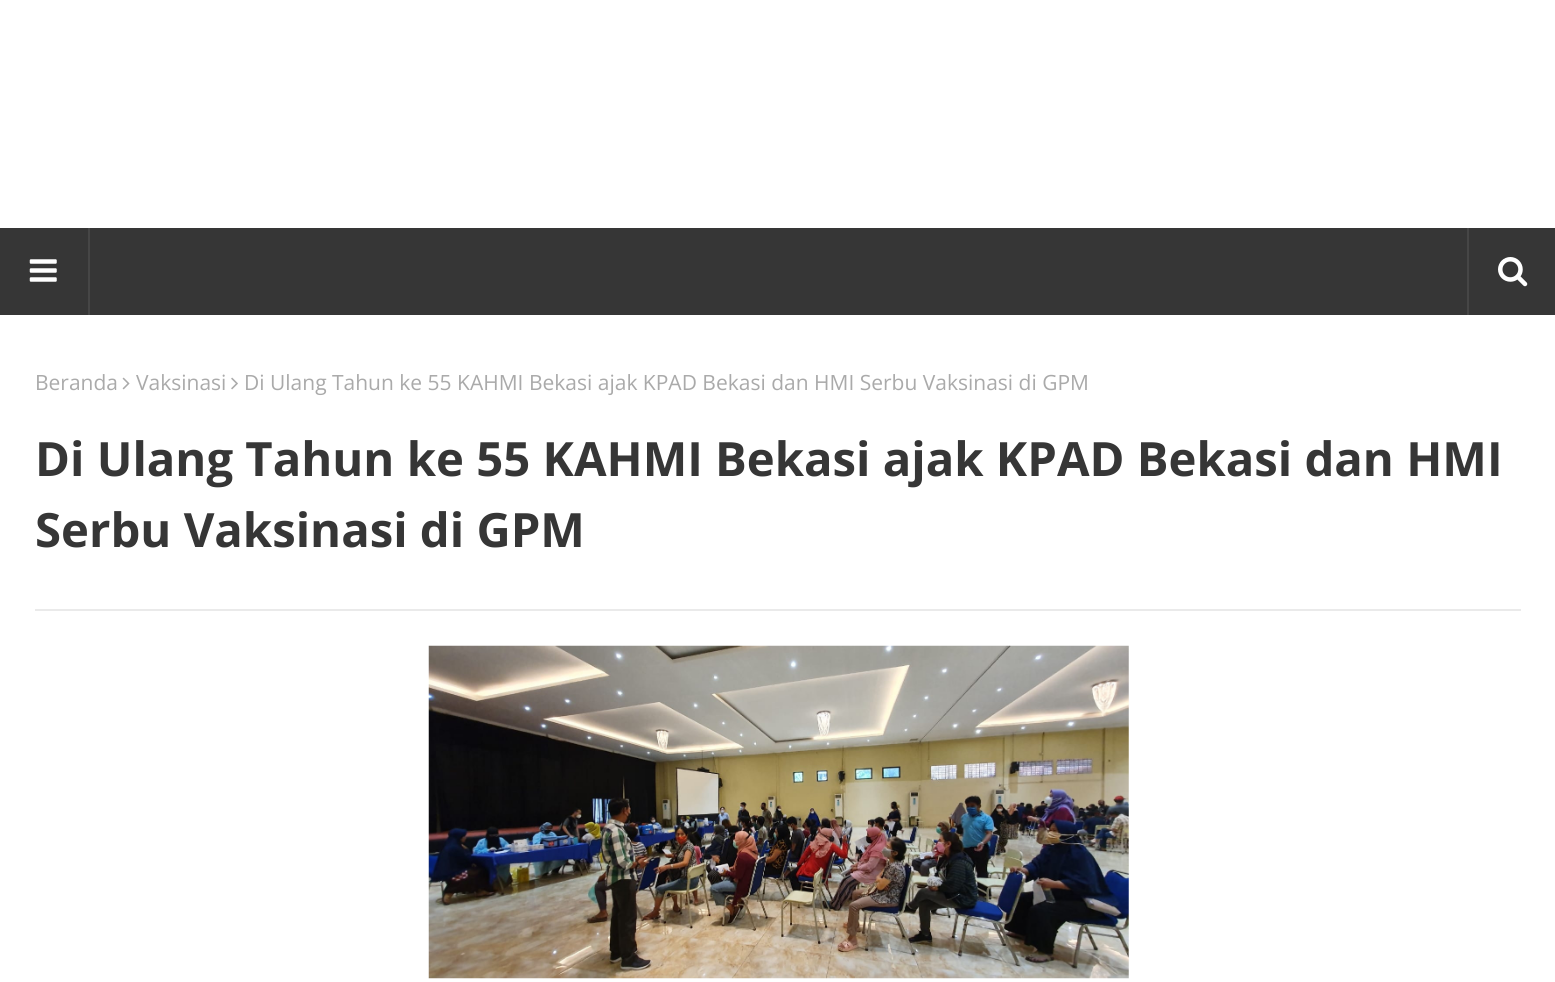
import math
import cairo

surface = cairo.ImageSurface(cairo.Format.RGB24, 1555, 982)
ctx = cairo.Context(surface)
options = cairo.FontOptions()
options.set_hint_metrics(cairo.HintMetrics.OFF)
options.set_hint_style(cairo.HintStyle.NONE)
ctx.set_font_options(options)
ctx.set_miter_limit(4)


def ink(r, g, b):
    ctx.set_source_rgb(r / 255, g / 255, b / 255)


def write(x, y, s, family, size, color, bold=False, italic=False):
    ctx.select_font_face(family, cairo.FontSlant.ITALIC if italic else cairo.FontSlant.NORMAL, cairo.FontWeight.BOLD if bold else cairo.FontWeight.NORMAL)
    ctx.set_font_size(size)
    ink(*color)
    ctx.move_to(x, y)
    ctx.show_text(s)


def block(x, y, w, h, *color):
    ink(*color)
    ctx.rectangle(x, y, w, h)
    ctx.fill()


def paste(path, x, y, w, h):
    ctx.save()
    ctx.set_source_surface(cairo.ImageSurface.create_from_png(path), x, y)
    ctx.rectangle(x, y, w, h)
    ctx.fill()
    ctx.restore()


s1 = dict(family="Open Sans", size=21, color=(170, 170, 170))
s2 = dict(family="Open Sans", size=47.25, color=(54, 54, 54), bold=True)

ink(255, 255, 255)
ctx.paint()
block(0, 228, 1555, 87, 54, 54, 54)
block(88, 228, 2, 87, 70, 70, 70)
paste("pic1.png", 29, 259, 28, 23)
block(1467, 228, 2, 87, 70, 70, 70)
paste("pic2.png", 1498, 257, 30, 30)
write(35, 390, "Beranda", **s1)
paste("pic3.png", 122, 377, 8, 13)
write(136, 390, "Vaksinasi", **s1)
paste("pic4.png", 231, 377, 7, 13)
write(244, 390, "Di Ulang Tahun ke 55 KAHMI Bekasi ajak KPAD Bekasi dan HMI Serbu Vaksinasi di GPM", **s1)
write(35, 476, "Di Ulang Tahun ke 55 KAHMI Bekasi ajak KPAD Bekasi dan HMI", **s2)
write(35, 547, "Serbu Vaksinasi di GPM", **s2)
block(35, 609, 1486, 2, 234, 234, 234)
paste("pic5.png", 428, 645, 701, 334)
surface.write_to_png("screenshot.png")
